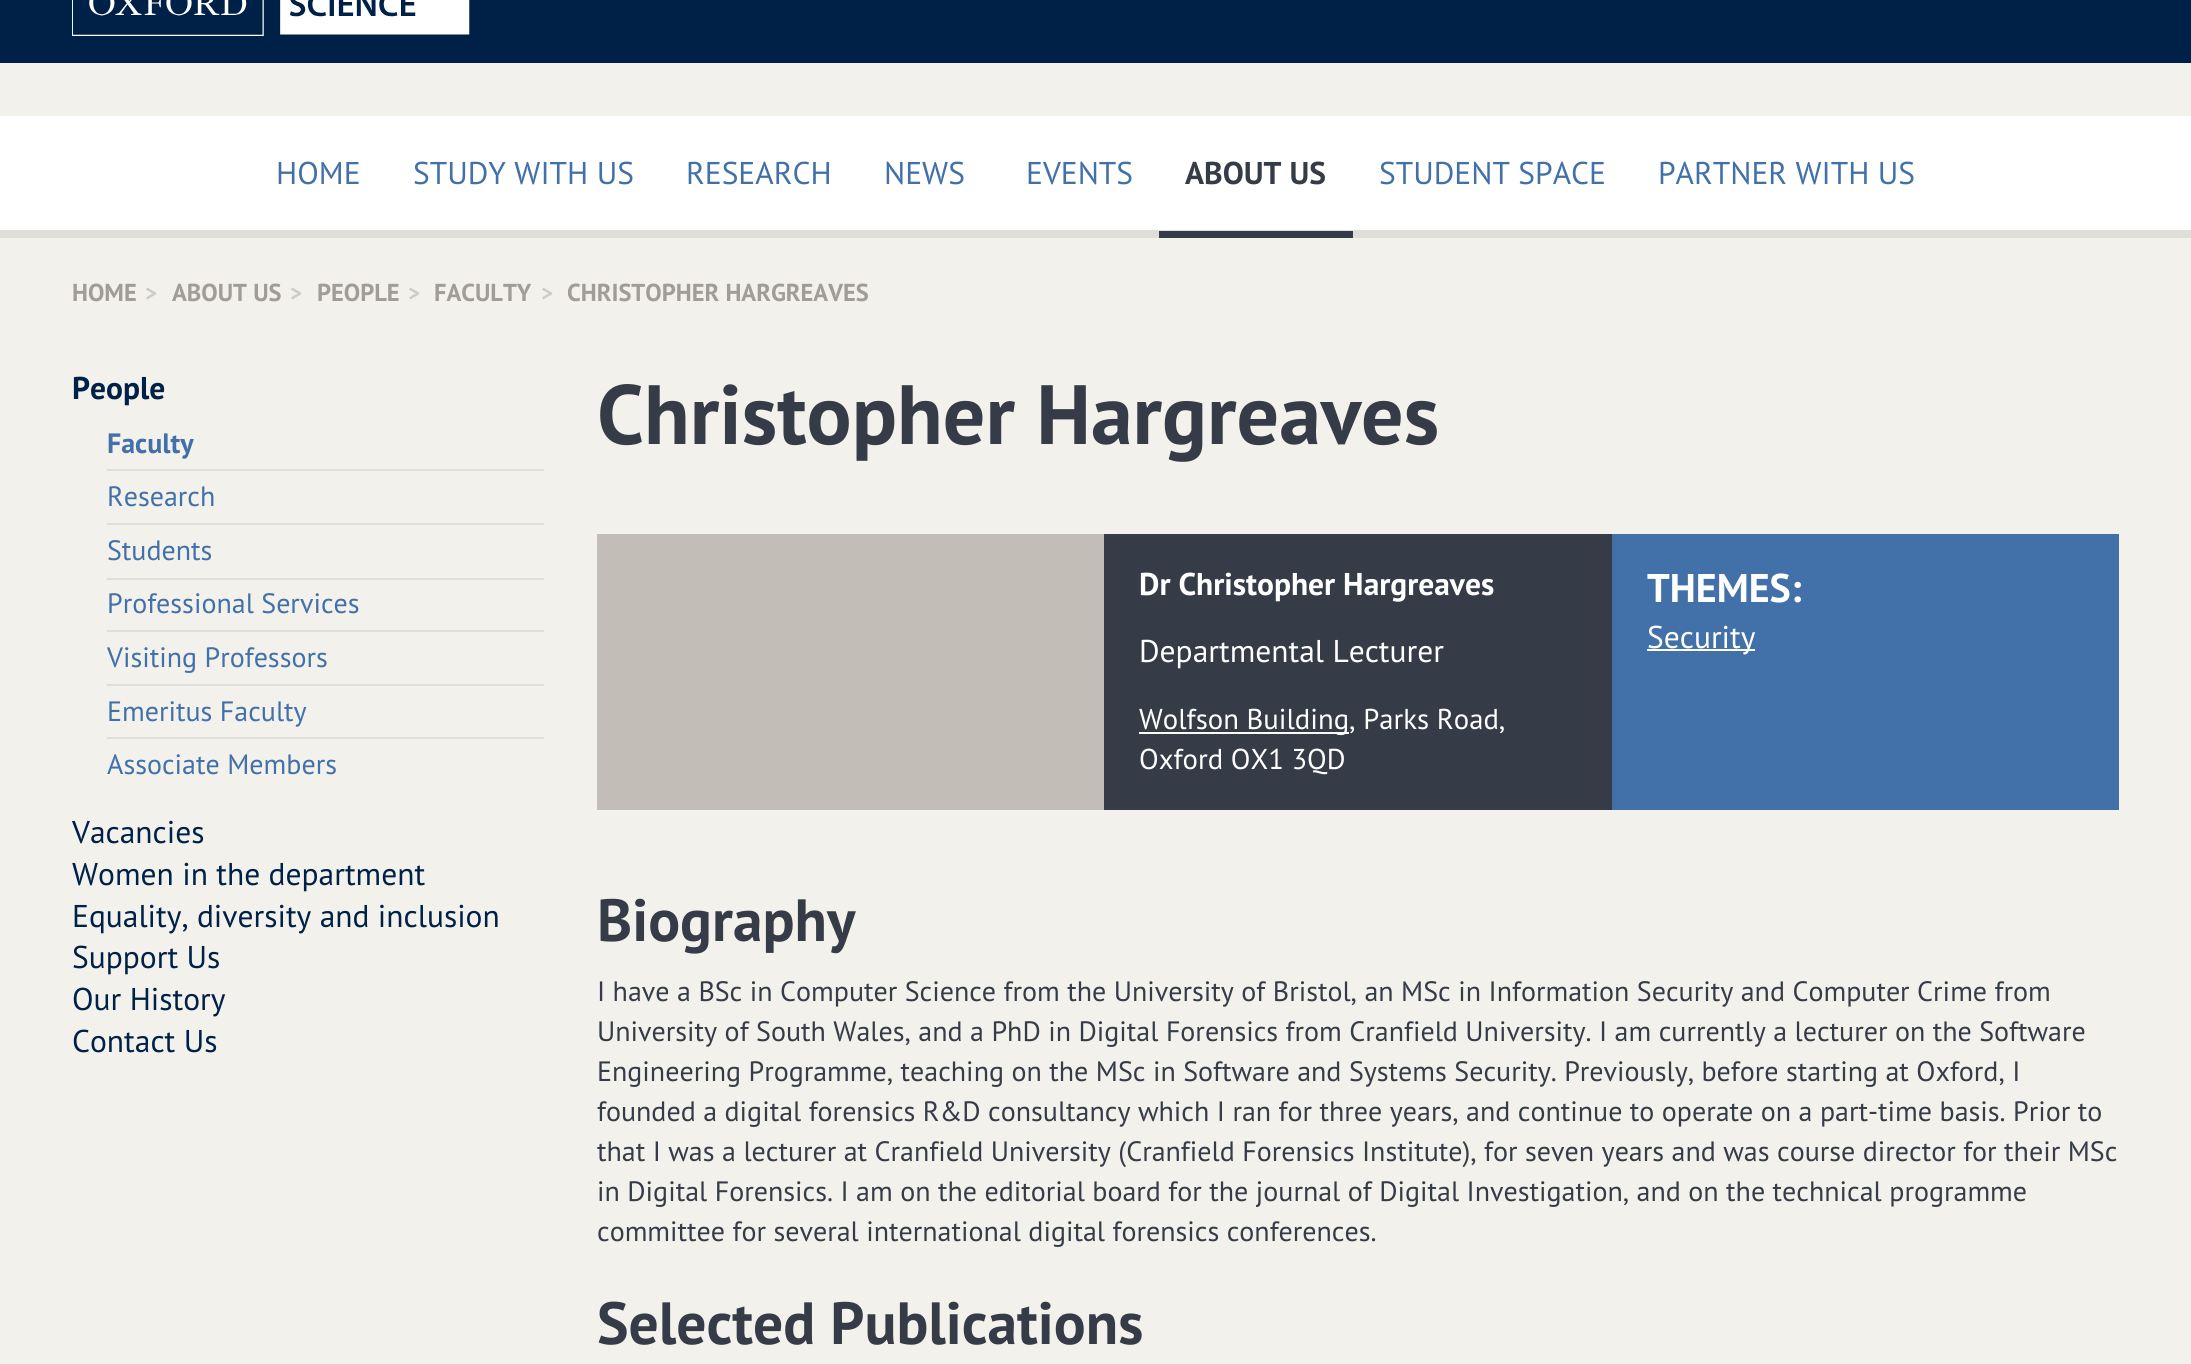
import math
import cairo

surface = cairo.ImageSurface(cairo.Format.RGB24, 2191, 1364)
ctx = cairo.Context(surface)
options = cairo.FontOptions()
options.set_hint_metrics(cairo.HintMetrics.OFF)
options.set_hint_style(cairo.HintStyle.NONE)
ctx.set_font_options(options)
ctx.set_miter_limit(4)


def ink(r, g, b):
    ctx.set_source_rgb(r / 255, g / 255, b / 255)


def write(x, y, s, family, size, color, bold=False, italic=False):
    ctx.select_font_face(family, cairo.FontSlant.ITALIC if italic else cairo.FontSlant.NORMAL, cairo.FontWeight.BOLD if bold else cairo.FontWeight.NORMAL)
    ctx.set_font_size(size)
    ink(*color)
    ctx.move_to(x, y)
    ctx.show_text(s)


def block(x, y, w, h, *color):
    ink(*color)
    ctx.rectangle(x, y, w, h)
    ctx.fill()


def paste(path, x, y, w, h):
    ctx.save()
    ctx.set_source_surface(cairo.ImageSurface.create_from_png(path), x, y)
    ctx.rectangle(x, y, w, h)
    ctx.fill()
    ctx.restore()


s1 = dict(family="PT Sans", size=31.5, color=(66, 112, 169))
s2 = dict(family="PT Sans", size=31.5, color=(53, 60, 71), bold=True)
s3 = dict(family="PT Sans", size=24.5, color=(161, 156, 150), bold=True)
s4 = dict(family="PT Sans", size=23, color=(204, 204, 204), bold=True)
s5 = dict(family="PT Sans", size=31.5, color=(0, 33, 71), bold=True)
s6 = dict(family="PT Sans", size=28, color=(66, 112, 169), bold=True)
s7 = dict(family="PT Sans", size=28, color=(66, 112, 169))
s8 = dict(family="PT Sans", size=31.5, color=(0, 33, 71))
s9 = dict(family="PT Sans", size=84, color=(53, 60, 71), bold=True)
s10 = dict(family="PT Sans", size=31.5, color=(255, 255, 255), bold=True)
s11 = dict(family="PT Sans", size=31.5, color=(255, 255, 255))
s12 = dict(family="PT Sans", size=28.7, color=(255, 255, 255))
s13 = dict(family="PT Sans", size=40, color=(255, 255, 255), bold=True)
s14 = dict(family="PT Sans", size=59.5, color=(53, 60, 71), bold=True)
s15 = dict(family="PT Sans", size=28, color=(53, 60, 71))

ink(243, 241, 236)
ctx.paint()
block(0, 0, 2191, 63, 0, 33, 71)
paste("pic1.png", 72, 0, 398, 36)
block(0, 116, 2191, 114, 255, 255, 255)
block(0, 230, 2191, 8, 224, 222, 217)
write(276, 184, "HOME", **s1)
write(413, 184, "STUDY WITH US", **s1)
write(686, 184, "RESEARCH", **s1)
write(884, 184, "NEWS", **s1)
write(1026, 184, "EVENTS", **s1)
block(1159, 231, 194, 7, 53, 60, 71)
write(1185, 184, "ABOUT US", **s2)
write(1379, 184, "STUDENT SPACE", **s1)
write(1658, 184, "PARTNER WITH US", **s1)
write(72, 301, "HOME", **s3)
write(145, 301, ">", **s4)
write(172, 301, "ABOUT US", **s3)
write(290, 301, ">", **s4)
write(317, 301, "PEOPLE", **s3)
write(408, 301, ">", **s4)
write(434, 301, "FACULTY", **s3)
write(541, 301, ">", **s4)
write(567, 301, "CHRISTOPHER HARGREAVES", **s3)
write(72, 399, "People", **s5)
write(107, 453, "Faculty", **s6)
block(107, 469, 437, 2, 224, 222, 217)
write(107, 506, "Research", **s7)
block(107, 523, 437, 2, 224, 222, 217)
write(107, 560, "Students", **s7)
block(107, 578, 437, 2, 224, 222, 217)
write(107, 613, "Professional Services", **s7)
block(107, 630, 437, 2, 224, 222, 217)
write(107, 667, "Visiting Professors", **s7)
block(107, 684, 437, 2, 224, 222, 217)
write(107, 721, "Emeritus Faculty", **s7)
block(107, 737, 437, 2, 224, 222, 217)
write(107, 774, "Associate Members", **s7)
write(72, 843, "Vacancies", **s8)
write(72, 885, "Women in the department", **s8)
write(72, 927, "Equality, diversity and inclusion", **s8)
write(72, 968, "Support Us", **s8)
write(72, 1010, "Our History", **s8)
write(72, 1052, "Contact Us", **s8)
write(597, 444, "Christopher Hargreaves", **s9)
block(597, 534, 507, 276, 195, 189, 183)
block(1104, 534, 508, 276, 53, 60, 71)
write(1139, 595, "Dr Christopher Hargreaves", **s10)
write(1139, 662, "Departmental Lecturer", **s11)
block(1139, 732, 210, 2, 255, 255, 255)
write(1139, 729, "Wolfson Building, Parks Road,", **s12)
write(1139, 769, "Oxford OX1 3QD", **s12)
block(1612, 534, 507, 276, 66, 112, 169)
write(1647, 602, "THEMES:", **s13)
block(1647, 649, 108, 2, 255, 255, 255)
write(1647, 648, "Security", **s11)
write(597, 941, "Biography", **s14)
write(597, 1001, "I have a BSc in Computer Science from the University of Bristol, an MSc in Information Security and Computer Crime from", **s15)
write(597, 1041, "University of South Wales, and a PhD in Digital Forensics from Cranfield University. I am currently a lecturer on the Software", **s15)
write(597, 1081, "Engineering Programme, teaching on the MSc in Software and Systems Security. Previously, before starting at Oxford, I", **s15)
write(597, 1121, "founded a digital forensics R&D consultancy which I ran for three years, and continue to operate on a part-time basis. Prior to", **s15)
write(597, 1161, "that I was a lecturer at Cranfield University (Cranfield Forensics Institute), for seven years and was course director for their MSc", **s15)
write(597, 1201, "in Digital Forensics. I am on the editorial board for the journal of Digital Investigation, and on the technical programme", **s15)
write(597, 1241, "committee for several international digital forensics conferences.", **s15)
write(597, 1344, "Selected Publications", **s14)
surface.write_to_png("screenshot.png")
